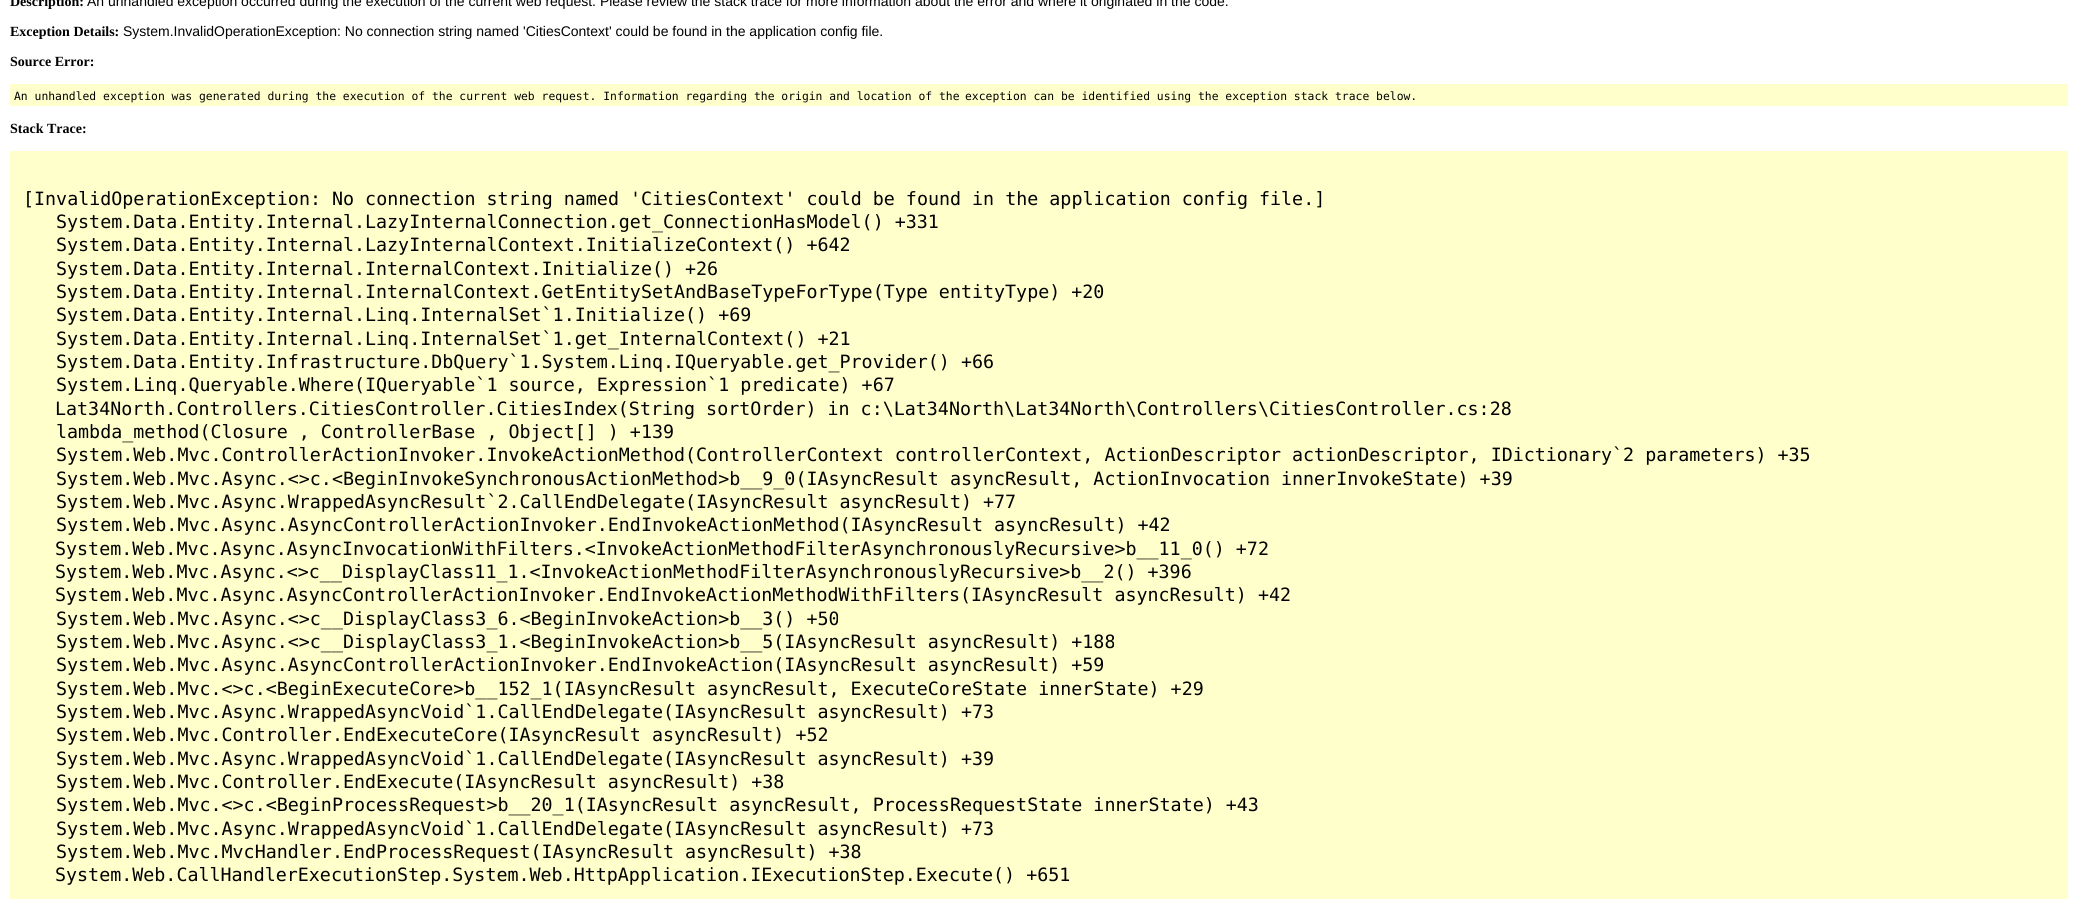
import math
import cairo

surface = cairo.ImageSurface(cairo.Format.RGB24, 2077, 899)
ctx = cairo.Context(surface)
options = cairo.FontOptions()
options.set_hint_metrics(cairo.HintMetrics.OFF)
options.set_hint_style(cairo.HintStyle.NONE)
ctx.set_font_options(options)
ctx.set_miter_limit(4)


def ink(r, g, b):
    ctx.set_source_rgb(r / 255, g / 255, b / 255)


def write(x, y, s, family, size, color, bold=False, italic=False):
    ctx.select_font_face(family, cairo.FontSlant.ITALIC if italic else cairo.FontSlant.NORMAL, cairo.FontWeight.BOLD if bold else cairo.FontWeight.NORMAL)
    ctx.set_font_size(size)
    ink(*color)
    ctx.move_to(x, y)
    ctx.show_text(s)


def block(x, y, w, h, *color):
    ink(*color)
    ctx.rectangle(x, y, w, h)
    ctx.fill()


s1 = dict(family="Liberation Serif", size=14, color=(0, 0, 0), bold=True)
s2 = dict(family="Liberation Sans", size=14, color=(0, 0, 0))
s3 = dict(family="DejaVu Sans Mono", size=11.38, color=(0, 0, 0))
s4 = dict(family="DejaVu Sans Mono", size=18.33, color=(0, 0, 0))

ink(255, 255, 255)
ctx.paint()
write(10, 6, "Description:", **s1)
write(87, 6, "An unhandled exception occurred during the execution of the current web request. Please review the stack trace for more information about the error and where it originated in the code.", **s2)
write(10, 36, "Exception Details:", **s1)
write(123, 36, "System.InvalidOperationException: No connection string named 'CitiesContext' could be found in the application config file.", **s2)
write(10, 66, "Source Error:", **s1)
block(10, 84, 2058, 22, 255, 255, 204)
write(14, 100, "An unhandled exception was generated during the execution of the current web request. Information regarding the origin and location of the", **s3)
write(965, 100, "exception can be identified using the exception stack trace below.", **s3)
write(10, 133, "Stack Trace:", **s1)
block(10, 151, 2058, 748, 255, 255, 204)
write(23, 205, "[InvalidOperationException: No connection string named 'CitiesContext' could be found in the application config file.]", **s4)
write(56, 228, "System.Data.Entity.Internal.LazyInternalConnection.get_ConnectionHasModel() +331", **s4)
write(56, 251, "System.Data.Entity.Internal.LazyInternalContext.InitializeContext() +642", **s4)
write(56, 275, "System.Data.Entity.Internal.InternalContext.Initialize() +26", **s4)
write(56, 298, "System.Data.Entity.Internal.InternalContext.GetEntitySetAndBaseTypeForType(Type entityType) +20", **s4)
write(56, 321, "System.Data.Entity.Internal.Linq.InternalSet`1.Initialize() +69", **s4)
write(56, 345, "System.Data.Entity.Internal.Linq.InternalSet`1.get_InternalContext() +21", **s4)
write(56, 368, "System.Data.Entity.Infrastructure.DbQuery`1.System.Linq.IQueryable.get_Provider() +66", **s4)
write(56, 391, "System.Linq.Queryable.Where(IQueryable`1 source, Expression`1 predicate) +67", **s4)
write(55, 415, "Lat34North.Controllers.CitiesController.CitiesIndex(String sortOrder) in c:\\Lat34North\\Lat34North\\Controllers\\CitiesController.cs:28", **s4)
write(56, 438, "lambda_method(Closure , ControllerBase , Object[] ) +139", **s4)
write(56, 461, "System.Web.Mvc.ControllerActionInvoker.InvokeActionMethod(ControllerContext controllerContext, ActionDescriptor actionDescriptor, IDictionary`2 parameters) +35", **s4)
write(56, 485, "System.Web.Mvc.Async.<>c.<BeginInvokeSynchronousActionMethod>b__9_0(IAsyncResult asyncResult, ActionInvocation innerInvokeState) +39", **s4)
write(56, 508, "System.Web.Mvc.Async.WrappedAsyncResult`2.CallEndDelegate(IAsyncResult asyncResult) +77", **s4)
write(56, 531, "System.Web.Mvc.Async.AsyncControllerActionInvoker.EndInvokeActionMethod(IAsyncResult asyncResult) +42", **s4)
write(55, 555, "System.Web.Mvc.Async.AsyncInvocationWithFilters.<InvokeActionMethodFilterAsynchronouslyRecursive>b__11_0() +72", **s4)
write(55, 578, "System.Web.Mvc.Async.<>c__DisplayClass11_1.<InvokeActionMethodFilterAsynchronouslyRecursive>b__2() +396", **s4)
write(55, 601, "System.Web.Mvc.Async.AsyncControllerActionInvoker.EndInvokeActionMethodWithFilters(IAsyncResult asyncResult) +42", **s4)
write(56, 625, "System.Web.Mvc.Async.<>c__DisplayClass3_6.<BeginInvokeAction>b__3() +50", **s4)
write(56, 648, "System.Web.Mvc.Async.<>c__DisplayClass3_1.<BeginInvokeAction>b__5(IAsyncResult asyncResult) +188", **s4)
write(56, 671, "System.Web.Mvc.Async.AsyncControllerActionInvoker.EndInvokeAction(IAsyncResult asyncResult) +59", **s4)
write(56, 695, "System.Web.Mvc.<>c.<BeginExecuteCore>b__152_1(IAsyncResult asyncResult, ExecuteCoreState innerState) +29", **s4)
write(56, 718, "System.Web.Mvc.Async.WrappedAsyncVoid`1.CallEndDelegate(IAsyncResult asyncResult) +73", **s4)
write(56, 741, "System.Web.Mvc.Controller.EndExecuteCore(IAsyncResult asyncResult) +52", **s4)
write(56, 765, "System.Web.Mvc.Async.WrappedAsyncVoid`1.CallEndDelegate(IAsyncResult asyncResult) +39", **s4)
write(56, 788, "System.Web.Mvc.Controller.EndExecute(IAsyncResult asyncResult) +38", **s4)
write(56, 811, "System.Web.Mvc.<>c.<BeginProcessRequest>b__20_1(IAsyncResult asyncResult, ProcessRequestState innerState) +43", **s4)
write(56, 835, "System.Web.Mvc.Async.WrappedAsyncVoid`1.CallEndDelegate(IAsyncResult asyncResult) +73", **s4)
write(56, 858, "System.Web.Mvc.MvcHandler.EndProcessRequest(IAsyncResult asyncResult) +38", **s4)
write(55, 881, "System.Web.CallHandlerExecutionStep.System.Web.HttpApplication.IExecutionStep.Execute() +651", **s4)
surface.write_to_png("screenshot.png")
